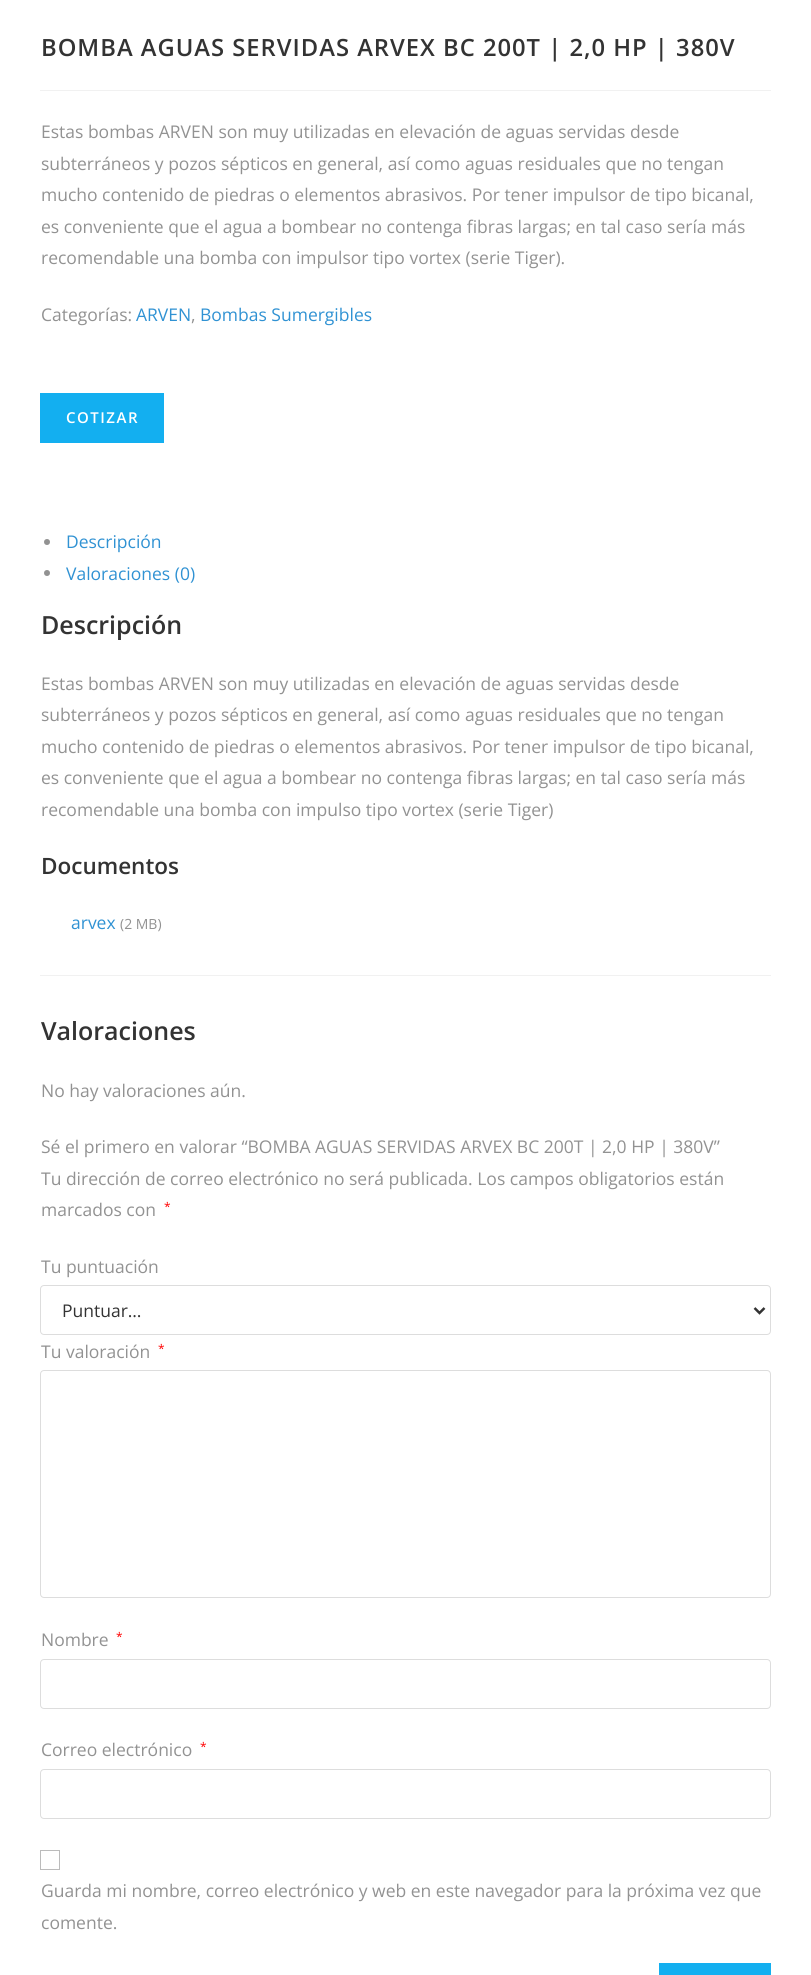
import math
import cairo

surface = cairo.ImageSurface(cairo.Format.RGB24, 811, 1975)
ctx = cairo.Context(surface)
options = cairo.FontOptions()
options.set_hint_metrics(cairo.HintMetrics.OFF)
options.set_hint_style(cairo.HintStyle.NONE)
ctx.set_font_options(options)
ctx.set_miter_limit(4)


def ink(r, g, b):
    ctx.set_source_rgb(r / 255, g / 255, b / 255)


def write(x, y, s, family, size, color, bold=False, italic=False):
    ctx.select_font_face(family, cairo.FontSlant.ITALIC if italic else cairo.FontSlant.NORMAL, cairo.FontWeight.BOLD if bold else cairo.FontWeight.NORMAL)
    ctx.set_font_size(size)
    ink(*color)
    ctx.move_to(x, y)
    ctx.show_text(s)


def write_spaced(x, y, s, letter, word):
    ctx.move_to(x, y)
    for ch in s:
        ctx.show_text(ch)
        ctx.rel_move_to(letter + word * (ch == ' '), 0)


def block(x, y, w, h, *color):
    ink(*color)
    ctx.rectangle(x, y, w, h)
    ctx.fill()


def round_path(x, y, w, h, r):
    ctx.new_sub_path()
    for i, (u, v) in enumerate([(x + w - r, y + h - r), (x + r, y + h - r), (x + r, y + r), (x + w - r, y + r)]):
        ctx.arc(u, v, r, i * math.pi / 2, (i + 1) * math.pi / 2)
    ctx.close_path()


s1 = dict(family="Open Sans", size=17.5, color=(146, 146, 146))
s2 = dict(family="Open Sans", size=17.5, color=(48, 146, 211))
s3 = dict(family="Open Sans SemiBold", size=25, color=(51, 51, 51))
s4 = dict(family="Open Sans SemiBold", size=22.5, color=(51, 51, 51))
s5 = dict(family="Open Sans", size=14, color=(146, 146, 146))
s6 = dict(family="Open Sans", size=12, color=(255, 0, 0))
s7 = dict(family="Open Sans", size=17.5, color=(51, 51, 51))

ink(255, 255, 255)
ctx.paint()
block(40, 90, 731, 1, 241, 241, 241)
ctx.select_font_face("Open Sans SemiBold")
ctx.set_font_size(23.75)
ink(51, 51, 51)
write_spaced(41, 56, "BOMBA AGUAS SERVIDAS ARVEX BC 200T | 2,0 HP | 380V", 1, 0)
write(41, 138, "Estas bombas ARVEN son muy utilizadas en elevación de aguas servidas desde", **s1)
write(41, 170, "subterráneos y pozos sépticos en general, así como aguas residuales que no tengan", **s1)
write(41, 201, "mucho contenido de piedras o elementos abrasivos. Por tener impulsor de tipo bicanal,", **s1)
write(41, 233, "es conveniente que el agua a bombear no contenga fibras largas; en tal caso sería más", **s1)
write(41, 264, "recomendable una bomba con impulsor tipo vortex (serie Tiger).", **s1)
write(41, 321, "Categorías:", **s1)
write(136, 321, "ARVEN", **s2)
write(191, 321, ",", **s1)
write(200, 321, "Bombas Sumergibles", **s2)
block(40, 393, 124, 50, 19, 175, 240)
ctx.select_font_face("Open Sans SemiBold")
ctx.set_font_size(15)
ink(255, 255, 255)
write_spaced(66, 423, "COTIZAR", 1.5, 0)
ink(146, 146, 146)
ctx.new_path()
ctx.arc(47, 542, 3, 0, 2 * math.pi)
ctx.fill()
write(66, 548, "Descripción", **s2)
ink(146, 146, 146)
ctx.new_path()
ctx.arc(47, 573, 3, 0, 2 * math.pi)
ctx.fill()
write(66, 580, "Valoraciones (0)", **s2)
write(41, 634, "Descripción", **s3)
write(41, 690, "Estas bombas ARVEN son muy utilizadas en elevación de aguas servidas desde", **s1)
write(41, 721, "subterráneos y pozos sépticos en general, así como aguas residuales que no tengan", **s1)
write(41, 753, "mucho contenido de piedras o elementos abrasivos. Por tener impulsor de tipo bicanal,", **s1)
write(41, 784, "es conveniente que el agua a bombear no contenga fibras largas; en tal caso sería más", **s1)
write(41, 816, "recomendable una bomba con impulso tipo vortex (serie Tiger)", **s1)
write(41, 874, "Documentos", **s4)
write(71, 929, "arvex", **s2)
write(120, 929, "(2 MB)", **s5)
block(40, 975, 731, 1, 241, 241, 241)
write(41, 1040, "Valoraciones", **s3)
write(41, 1097, "No hay valoraciones aún.", **s1)
write(41, 1153, "Sé el primero en valorar “BOMBA AGUAS SERVIDAS ARVEX BC 200T | 2,0 HP | 380V”", **s1)
write(41, 1185, "Tu dirección de correo electrónico no será publicada. Los campos obligatorios están", **s1)
write(41, 1216, "marcados con", **s1)
write(164, 1211, "*", **s6)
write(41, 1273, "Tu puntuación", **s1)
round_path(40.5, 1285.5, 730, 49, 3.5)
ink(221, 221, 221)
ctx.set_line_width(1)
ctx.stroke()
ctx.new_path()
ctx.move_to(754.5, 1308)
ctx.line_to(759.5, 1313)
ctx.line_to(764.5, 1308)
ink(51, 51, 51)
ctx.set_line_width(2.5)
ctx.stroke()
write(62, 1317, "Puntuar…", **s7)
write(41, 1358, "Tu valoración", **s1)
write(158, 1353, "*", **s6)
round_path(40.5, 1370.5, 730, 227, 3.5)
ink(221, 221, 221)
ctx.set_line_width(1)
ctx.stroke()
write(41, 1646, "Nombre", **s1)
write(116, 1641, "*", **s6)
round_path(40.5, 1659.5, 730, 49, 3.5)
ink(221, 221, 221)
ctx.stroke()
write(41, 1756, "Correo electrónico", **s1)
write(200, 1751, "*", **s6)
round_path(40.5, 1769.5, 730, 49, 3.5)
ink(221, 221, 221)
ctx.stroke()
ctx.rectangle(40.5, 1850.5, 19, 19)
ink(187, 187, 187)
ctx.stroke()
write(41, 1897, "Guarda mi nombre, correo electrónico y web en este navegador para la próxima vez que", **s1)
write(41, 1929, "comente.", **s1)
block(659, 1963, 112, 12, 19, 175, 240)
surface.write_to_png("screenshot.png")
